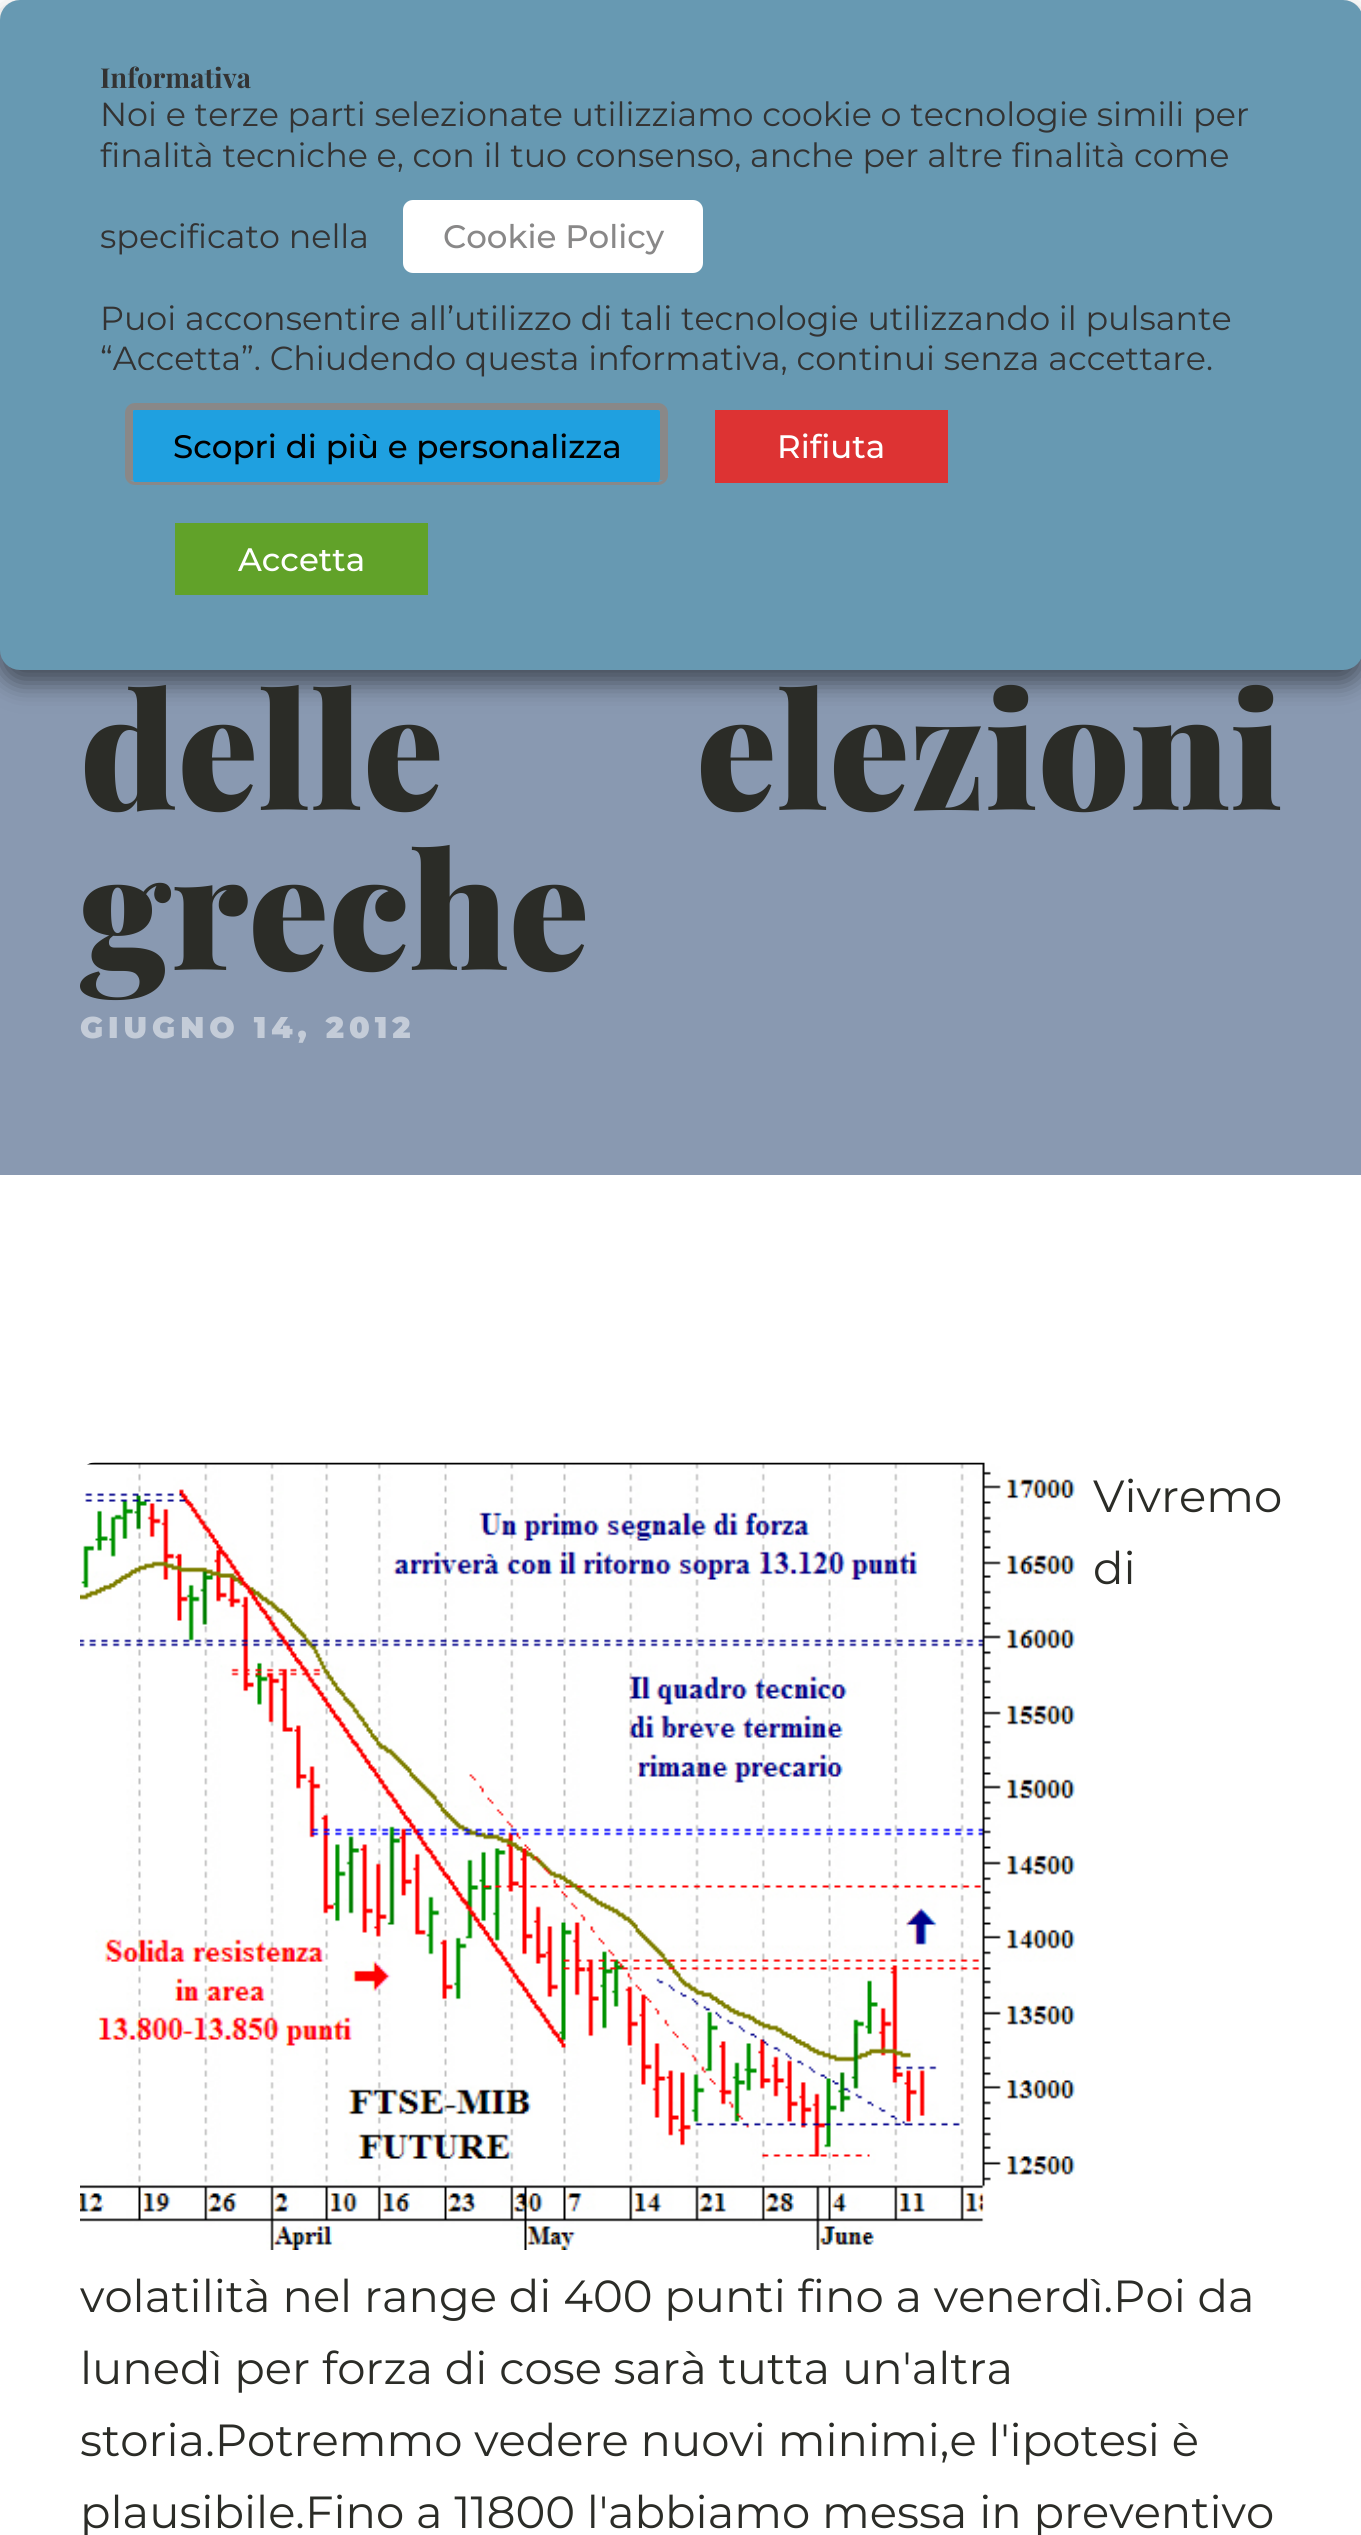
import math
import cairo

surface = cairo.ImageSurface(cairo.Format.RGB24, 1361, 2535)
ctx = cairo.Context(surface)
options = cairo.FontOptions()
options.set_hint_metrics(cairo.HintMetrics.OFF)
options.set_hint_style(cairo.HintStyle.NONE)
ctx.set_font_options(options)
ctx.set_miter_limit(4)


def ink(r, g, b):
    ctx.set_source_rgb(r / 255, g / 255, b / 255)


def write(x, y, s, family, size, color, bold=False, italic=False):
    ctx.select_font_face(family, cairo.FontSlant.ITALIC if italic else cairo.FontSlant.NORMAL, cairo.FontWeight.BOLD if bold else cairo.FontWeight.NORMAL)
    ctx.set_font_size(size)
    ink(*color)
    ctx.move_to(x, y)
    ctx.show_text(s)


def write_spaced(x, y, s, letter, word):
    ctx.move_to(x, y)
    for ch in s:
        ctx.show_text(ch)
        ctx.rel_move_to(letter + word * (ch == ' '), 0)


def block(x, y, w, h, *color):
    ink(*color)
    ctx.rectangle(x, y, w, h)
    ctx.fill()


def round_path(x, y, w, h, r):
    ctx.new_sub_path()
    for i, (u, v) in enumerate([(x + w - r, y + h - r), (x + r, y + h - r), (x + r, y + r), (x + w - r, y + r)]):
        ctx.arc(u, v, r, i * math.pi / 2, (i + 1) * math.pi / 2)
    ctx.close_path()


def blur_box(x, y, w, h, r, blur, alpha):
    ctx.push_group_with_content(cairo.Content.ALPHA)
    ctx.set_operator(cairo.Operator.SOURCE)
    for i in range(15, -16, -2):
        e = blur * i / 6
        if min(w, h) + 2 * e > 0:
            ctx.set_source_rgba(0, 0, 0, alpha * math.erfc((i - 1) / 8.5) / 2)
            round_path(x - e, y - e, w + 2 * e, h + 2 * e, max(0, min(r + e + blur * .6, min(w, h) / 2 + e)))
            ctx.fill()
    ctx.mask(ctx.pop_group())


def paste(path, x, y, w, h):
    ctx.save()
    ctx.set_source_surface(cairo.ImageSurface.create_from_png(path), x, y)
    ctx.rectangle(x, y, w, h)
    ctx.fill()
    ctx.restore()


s1 = dict(family="Playfair Display", size=27.5, color=(51, 51, 51), bold=True)
s2 = dict(family="Montserrat", size=33.35, color=(51, 51, 51))
s3 = dict(family="Montserrat Medium", size=32.5, color=(137, 136, 136))
s4 = dict(family="Montserrat Medium", size=32.5, color=(0, 0, 0))
s5 = dict(family="Montserrat Medium", size=32.5, color=(255, 255, 255))
s6 = dict(family="Playfair Display Black", size=160, color=(43, 44, 39))
s7 = dict(family="Montserrat", size=45, color=(43, 44, 39))

ink(255, 255, 255)
ctx.paint()
block(0, 650, 1361, 525, 137, 153, 177)
ink(0, 0, 0)
blur_box(0, 13, 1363, 670, 20, 12.5, 0.5)
ink(103, 153, 178)
round_path(12.5, 12.5, 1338, 645, 7.5)
ctx.fill_preserve()
ctx.set_line_width(25)
ctx.stroke()
write(100, 88, "Informativa", **s1)
write(100, 126, "Noi e terze parti selezionate utilizziamo cookie o tecnologie simili per", **s2)
write(100, 167, "finalità tecniche e, con il tuo consenso, anche per altre finalità come", **s2)
write(100, 248, "specificato nella", **s2)
ink(255, 255, 255)
round_path(403, 200, 300, 73, 10)
ctx.fill()
write(443, 248, "Cookie Policy", **s3)
write(100, 330, "Puoi acconsentire all’utilizzo di tali tecnologie utilizzando il pulsante", **s2)
write(100, 370, "“Accetta”. Chiudendo questa informativa, continui senza accettare.", **s2)
ink(31, 160, 224)
ctx.new_path()
ctx.move_to(135, 410)
ctx.line_to(658, 410)
ctx.curve_to(659, 410, 660, 411, 660, 412)
ctx.line_to(660, 475)
ctx.curve_to(660, 479, 659, 482, 658, 482)
ctx.line_to(135, 482)
ctx.curve_to(134, 482, 132, 479, 132, 475)
ctx.line_to(132, 412)
ctx.curve_to(132, 411, 134, 410, 135, 410)
ctx.close_path()
ctx.fill()
round_path(126.5, 404.5, 540, 79, 8.5)
ink(137, 136, 136)
ctx.set_line_width(3)
ctx.stroke()
block(130, 406, 533, 4, 137, 136, 136)
block(660, 408, 5, 72, 137, 136, 136)
block(128, 408, 5, 72, 137, 136, 136)
write(173, 458, "Scopri di più e personalizza", **s4)
block(715, 410, 233, 73, 221, 51, 51)
write(777, 458, "Rifiuta", **s5)
block(175, 523, 253, 72, 97, 162, 41)
write(238, 571, "Accetta", **s5)
ctx.select_font_face("Playfair Display Black")
ctx.set_font_size(160)
ink(43, 44, 39)
write_spaced(80, 810, "delle elezioni", 0, 217)
write(80, 970, "greche", **s6)
ctx.select_font_face("Montserrat Black")
ctx.set_font_size(30)
ink(196, 204, 216)
write_spaced(80, 1038, "GIUGNO 14, 2012", 5, 0)
paste("pic1.png", 80, 1462, 996, 788)
write(1093, 1512, "Vivremo", **s7)
write(1093, 1584, "di", **s7)
write(80, 2312, "volatilità nel range di 400 punti fino a venerdì.Poi da", **s7)
write(80, 2384, "lunedì per forza di cose sarà tutta un'altra", **s7)
write(80, 2456, "storia.Potremmo vedere nuovi minimi,e l'ipotesi è", **s7)
write(80, 2528, "plausibile.Fino a 11800 l'abbiamo messa in preventivo", **s7)
surface.write_to_png("screenshot.png")
